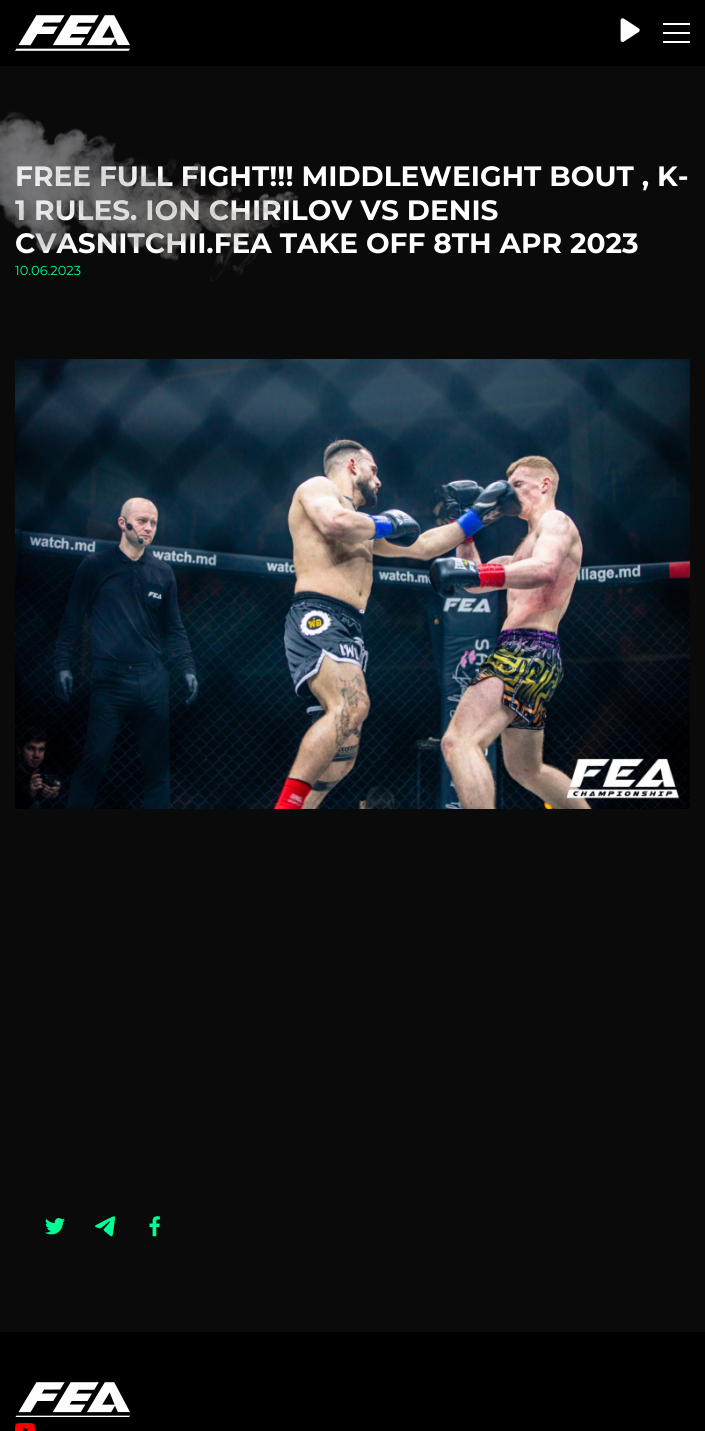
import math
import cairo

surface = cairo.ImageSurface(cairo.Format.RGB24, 705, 1431)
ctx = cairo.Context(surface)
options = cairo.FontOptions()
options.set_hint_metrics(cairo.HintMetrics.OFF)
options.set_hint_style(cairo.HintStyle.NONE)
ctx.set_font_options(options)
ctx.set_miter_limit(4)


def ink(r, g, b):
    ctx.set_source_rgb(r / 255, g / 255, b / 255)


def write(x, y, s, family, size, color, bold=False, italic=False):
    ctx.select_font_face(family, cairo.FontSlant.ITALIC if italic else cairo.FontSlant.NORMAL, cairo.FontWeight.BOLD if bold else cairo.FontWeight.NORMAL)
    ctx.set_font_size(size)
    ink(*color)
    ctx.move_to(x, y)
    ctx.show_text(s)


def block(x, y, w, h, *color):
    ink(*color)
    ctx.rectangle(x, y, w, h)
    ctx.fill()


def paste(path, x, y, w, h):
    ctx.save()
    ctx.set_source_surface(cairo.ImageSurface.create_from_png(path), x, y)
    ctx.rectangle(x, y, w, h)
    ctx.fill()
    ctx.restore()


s1 = dict(family="Montserrat", size=28, color=(255, 255, 255), bold=True)
s2 = dict(family="Montserrat", size=13, color=(0, 255, 148))

ink(10, 10, 10)
ctx.paint()
block(0, 0, 705, 66, 0, 0, 0)
paste("pic1.png", 15, 15, 115, 36)
paste("pic2.png", 620, 18, 20, 24)
block(663, 23, 27, 2, 255, 255, 255)
block(663, 32, 27, 2, 255, 255, 255)
block(663, 41, 27, 2, 255, 255, 255)
write(15, 186, "FREE FULL FIGHT!!! MIDDLEWEIGHT BOUT , K-", **s1)
write(15, 220, "1 RULES. ION CHIRILOV VS DENIS", **s1)
write(15, 253, "CVASNITCHII.FEA TAKE OFF 8TH APR 2023", **s1)
write(15, 275, "10.06.2023", **s2)
paste("pic3.png", 0, 111, 298, 171)
paste("pic4.png", 15, 359, 675, 450)
paste("pic5.png", 45, 1218, 20, 17)
paste("pic6.png", 95, 1216, 20, 21)
paste("pic7.png", 149, 1216, 11, 21)
block(0, 1332, 705, 99, 0, 0, 0)
paste("pic8.png", 15, 1382, 115, 35)
paste("pic9.png", 15, 1423, 20, 8)
surface.write_to_png("screenshot.png")
